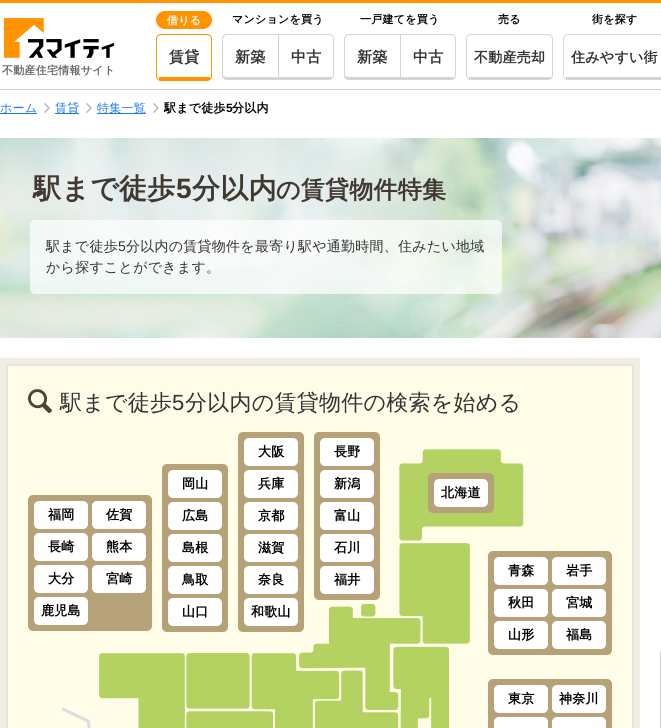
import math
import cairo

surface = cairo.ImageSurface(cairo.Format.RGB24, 661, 728)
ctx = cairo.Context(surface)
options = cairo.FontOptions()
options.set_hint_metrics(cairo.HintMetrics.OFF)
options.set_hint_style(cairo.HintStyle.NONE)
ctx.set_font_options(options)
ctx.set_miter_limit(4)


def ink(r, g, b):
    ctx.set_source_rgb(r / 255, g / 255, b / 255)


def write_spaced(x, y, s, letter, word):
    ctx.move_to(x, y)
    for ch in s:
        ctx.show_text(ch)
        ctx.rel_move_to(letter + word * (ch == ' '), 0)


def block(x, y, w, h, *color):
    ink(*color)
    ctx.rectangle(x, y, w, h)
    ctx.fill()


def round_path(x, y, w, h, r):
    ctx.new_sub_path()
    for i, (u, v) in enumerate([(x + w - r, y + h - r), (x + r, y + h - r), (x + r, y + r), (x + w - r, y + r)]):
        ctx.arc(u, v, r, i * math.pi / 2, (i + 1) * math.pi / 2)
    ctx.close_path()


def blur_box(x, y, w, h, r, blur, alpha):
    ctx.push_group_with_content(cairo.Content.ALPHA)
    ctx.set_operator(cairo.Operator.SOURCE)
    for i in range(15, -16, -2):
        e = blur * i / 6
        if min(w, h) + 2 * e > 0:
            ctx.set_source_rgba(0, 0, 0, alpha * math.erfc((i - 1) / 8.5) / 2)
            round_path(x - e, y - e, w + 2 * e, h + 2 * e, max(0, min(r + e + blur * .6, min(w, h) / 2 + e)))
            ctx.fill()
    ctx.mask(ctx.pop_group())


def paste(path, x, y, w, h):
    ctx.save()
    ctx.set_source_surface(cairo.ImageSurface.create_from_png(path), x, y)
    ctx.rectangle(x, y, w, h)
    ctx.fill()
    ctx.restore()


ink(255, 255, 255)
ctx.paint()
block(0, 0, 661, 3, 255, 147, 0)
block(0, 89, 661, 1, 204, 204, 204)
ink(255, 147, 0)
round_path(156, 11, 56, 18, 9)
ctx.fill()
ctx.select_font_face("WenQuanYi Zen Hei", cairo.FontSlant.NORMAL, cairo.FontWeight.BOLD)
ctx.set_font_size(11)
ink(255, 255, 255)
write_spaced(167, 24, "借りる", 0.25, 0)
round_path(156.5, 34.5, 55, 46, 4.5)
ink(255, 147, 0)
ctx.set_line_width(1)
ctx.stroke()
block(159, 77, 51, 3, 255, 147, 0)
ctx.set_font_size(15)
ink(51, 51, 51)
write_spaced(169, 62, "賃貸", 0.25, 0)
ctx.set_font_size(11)
ink(0, 0, 0)
write_spaced(232, 23, "マンションを買う", 0.25, 0)
ink(213, 213, 213)
ctx.set_fill_rule(cairo.FillRule.EVEN_ODD)
ctx.new_path()
ctx.move_to(227, 34)
ctx.line_to(278, 34)
ctx.line_to(278, 80)
ctx.line_to(227, 80)
ctx.curve_to(224, 80, 222, 78, 222, 75)
ctx.line_to(222, 39)
ctx.curve_to(222, 36, 224, 34, 227, 34)
ctx.close_path()
ctx.move_to(227, 35)
ctx.line_to(278, 35)
ctx.line_to(278, 77)
ctx.line_to(227, 77)
ctx.curve_to(225, 77, 223, 76, 223, 75)
ctx.line_to(223, 39)
ctx.curve_to(223, 37, 225, 35, 227, 35)
ctx.close_path()
ctx.fill()
ctx.set_font_size(15)
ink(51, 51, 51)
write_spaced(235, 62, "新築", 0.25, 0)
ctx.new_path()
ctx.move_to(278.5, 34.5)
ctx.line_to(329, 34.5)
ctx.curve_to(331.5, 34.5, 333.5, 36.5, 333.5, 39)
ctx.line_to(333.5, 75)
ctx.curve_to(333.5, 77.5, 331.5, 79.5, 329, 79.5)
ctx.line_to(278.5, 79.5)
ctx.close_path()
ink(213, 213, 213)
ctx.stroke()
block(278, 77, 54, 2, 213, 213, 213)
ink(51, 51, 51)
write_spaced(291, 62, "中古", 0.25, 0)
ctx.set_font_size(11)
ink(0, 0, 0)
write_spaced(360, 23, "一戸建てを買う", 0.25, 0)
ink(213, 213, 213)
ctx.new_path()
ctx.move_to(349, 34)
ctx.line_to(400, 34)
ctx.line_to(400, 80)
ctx.line_to(349, 80)
ctx.curve_to(346, 80, 344, 78, 344, 75)
ctx.line_to(344, 39)
ctx.curve_to(344, 36, 346, 34, 349, 34)
ctx.close_path()
ctx.move_to(349, 35)
ctx.line_to(400, 35)
ctx.line_to(400, 77)
ctx.line_to(349, 77)
ctx.curve_to(347, 77, 345, 76, 345, 75)
ctx.line_to(345, 39)
ctx.curve_to(345, 37, 347, 35, 349, 35)
ctx.close_path()
ctx.fill()
ctx.set_font_size(15)
ink(51, 51, 51)
write_spaced(357, 62, "新築", 0.25, 0)
ctx.new_path()
ctx.move_to(400.5, 34.5)
ctx.line_to(451, 34.5)
ctx.curve_to(453.5, 34.5, 455.5, 36.5, 455.5, 39)
ctx.line_to(455.5, 75)
ctx.curve_to(455.5, 77.5, 453.5, 79.5, 451, 79.5)
ctx.line_to(400.5, 79.5)
ctx.close_path()
ink(213, 213, 213)
ctx.stroke()
block(400, 77, 54, 2, 213, 213, 213)
ink(51, 51, 51)
write_spaced(413, 62, "中古", 0.25, 0)
ctx.set_font_size(11)
ink(0, 0, 0)
write_spaced(498, 23, "売る", 0.25, 0)
round_path(466.5, 34.5, 86, 45, 4.5)
ink(213, 213, 213)
ctx.stroke()
block(469, 77, 82, 2, 213, 213, 213)
ctx.set_font_size(14)
ink(51, 51, 51)
write_spaced(474, 62, "不動産売却", 0.25, 0)
ctx.set_font_size(11)
ink(0, 0, 0)
write_spaced(592, 23, "街を探す", 0.25, 0)
round_path(563.5, 34.5, 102, 45, 4.5)
ink(213, 213, 213)
ctx.stroke()
block(566, 77, 95, 2, 213, 213, 213)
ctx.set_font_size(14)
ink(51, 51, 51)
write_spaced(571, 62, "住みやすい街", 0.25, 0)
paste("pic1.png", 3, 18, 112, 40)
ctx.set_font_size(11)
ink(102, 102, 102)
write_spaced(2, 74, "不動産住宅情報サイト", 0.25, 0)
block(0, 113, 37, 1, 31, 122, 238)
ctx.select_font_face("WenQuanYi Zen Hei Medium")
ctx.set_font_size(12)
write_spaced(0, 112, "ホーム", 0.25, 0)
paste("pic2.png", 44, 103, 6, 10)
block(55, 113, 24, 1, 31, 122, 238)
write_spaced(55, 112, "賃貸", 0.25, 0)
paste("pic2.png", 86, 103, 6, 10)
block(97, 113, 49, 1, 31, 122, 238)
write_spaced(97, 112, "特集一覧", 0.25, 0)
paste("pic2.png", 153, 103, 6, 10)
ctx.select_font_face("WenQuanYi Zen Hei", cairo.FontSlant.NORMAL, cairo.FontWeight.BOLD)
ink(0, 0, 0)
write_spaced(164, 112, "駅まで徒歩", 0.25, 0)
ctx.select_font_face("Liberation Sans", cairo.FontSlant.NORMAL, cairo.FontWeight.BOLD)
write_spaced(226, 112, "5", 0.25, 0)
ctx.select_font_face("WenQuanYi Zen Hei", cairo.FontSlant.NORMAL, cairo.FontWeight.BOLD)
write_spaced(232, 112, "分以内", 0.25, 0)
paste("pic3.png", 0, 138, 661, 200)
ctx.set_font_size(28)
ink(64, 56, 49)
write_spaced(33, 198, "駅まで徒歩", 0.25, 0)
ctx.select_font_face("Liberation Sans", cairo.FontSlant.NORMAL, cairo.FontWeight.BOLD)
write_spaced(176, 198, "5", 0.25, 0)
ctx.select_font_face("WenQuanYi Zen Hei", cairo.FontSlant.NORMAL, cairo.FontWeight.BOLD)
write_spaced(192, 198, "分以内", 0.25, 0)
ctx.set_font_size(24)
write_spaced(276, 198, "の賃貸物件特集", 0.25, 0)
ctx.set_source_rgba(1, 1, 1, 0.7)
round_path(30, 220, 472, 74, 5)
ctx.fill()
ctx.select_font_face("WenQuanYi Zen Hei Medium")
ctx.set_font_size(14)
ink(51, 51, 51)
write_spaced(46, 251, "駅まで徒歩", 0.25, 0)
ctx.select_font_face("Liberation Sans")
write_spaced(118, 251, "5", 0.25, 0)
ctx.select_font_face("WenQuanYi Zen Hei Medium")
write_spaced(126, 251, "分以内の賃貸物件を最寄り駅や通勤時間、住みたい地域", 0.25, 0)
write_spaced(46, 272, "から探すことができます。", 0.25, 0)
block(0, 358, 640, 370, 240, 238, 226)
ink(204, 204, 204)
blur_box(8, 366, 624, 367, 0, 1.5, 1)
block(8, 366, 624, 362, 255, 252, 232)
paste("pic4.png", 28, 389, 24, 24)
ctx.set_font_size(22)
ink(51, 51, 51)
write_spaced(60, 410, "駅まで徒歩", 0.25, 0)
ctx.select_font_face("Liberation Sans")
write_spaced(172, 410, "5", 0.25, 0)
ctx.select_font_face("WenQuanYi Zen Hei Medium")
write_spaced(185, 410, "分以内の賃貸物件の検索を始める", 0.25, 0)
paste("pic5.png", 61, 449, 463, 279)
ink(182, 162, 120)
round_path(162, 464, 66, 168, 5)
ctx.fill()
ink(255, 255, 255)
round_path(168, 470, 54, 28, 5)
ctx.fill()
ctx.select_font_face("WenQuanYi Zen Hei", cairo.FontSlant.NORMAL, cairo.FontWeight.BOLD)
ctx.set_font_size(13)
ink(0, 0, 0)
write_spaced(182, 488, "岡山", 0.25, 0)
ink(255, 255, 255)
round_path(168, 502, 54, 28, 5)
ctx.fill()
ink(0, 0, 0)
write_spaced(182, 520, "広島", 0.25, 0)
ink(255, 255, 255)
round_path(168, 534, 54, 28, 5)
ctx.fill()
ink(0, 0, 0)
write_spaced(182, 552, "島根", 0.25, 0)
ink(255, 255, 255)
round_path(168, 566, 54, 28, 5)
ctx.fill()
ink(0, 0, 0)
write_spaced(182, 584, "鳥取", 0.25, 0)
ink(255, 255, 255)
round_path(168, 598, 54, 28, 5)
ctx.fill()
ink(0, 0, 0)
write_spaced(182, 616, "山口", 0.25, 0)
ink(182, 162, 120)
round_path(238, 432, 66, 200, 5)
ctx.fill()
ink(255, 255, 255)
round_path(244, 438, 54, 28, 5)
ctx.fill()
ink(0, 0, 0)
write_spaced(258, 456, "大阪", 0.25, 0)
ink(255, 255, 255)
round_path(244, 470, 54, 28, 5)
ctx.fill()
ink(0, 0, 0)
write_spaced(258, 488, "兵庫", 0.25, 0)
ink(255, 255, 255)
round_path(244, 502, 54, 28, 5)
ctx.fill()
ink(0, 0, 0)
write_spaced(258, 520, "京都", 0.25, 0)
ink(255, 255, 255)
round_path(244, 534, 54, 28, 5)
ctx.fill()
ink(0, 0, 0)
write_spaced(258, 552, "滋賀", 0.25, 0)
ink(255, 255, 255)
round_path(244, 566, 54, 28, 5)
ctx.fill()
ink(0, 0, 0)
write_spaced(258, 584, "奈良", 0.25, 0)
ink(255, 255, 255)
round_path(244, 598, 54, 28, 5)
ctx.fill()
ink(0, 0, 0)
write_spaced(251, 616, "和歌山", 0.25, 0)
ink(182, 162, 120)
round_path(314, 432, 66, 168, 5)
ctx.fill()
ink(255, 255, 255)
round_path(320, 438, 54, 28, 5)
ctx.fill()
ink(0, 0, 0)
write_spaced(334, 456, "長野", 0.25, 0)
ink(255, 255, 255)
round_path(320, 470, 54, 28, 5)
ctx.fill()
ink(0, 0, 0)
write_spaced(334, 488, "新潟", 0.25, 0)
ink(255, 255, 255)
round_path(320, 502, 54, 28, 5)
ctx.fill()
ink(0, 0, 0)
write_spaced(334, 520, "富山", 0.25, 0)
ink(255, 255, 255)
round_path(320, 534, 54, 28, 5)
ctx.fill()
ink(0, 0, 0)
write_spaced(334, 552, "石川", 0.25, 0)
ink(255, 255, 255)
round_path(320, 566, 54, 28, 5)
ctx.fill()
ink(0, 0, 0)
write_spaced(334, 584, "福井", 0.25, 0)
ink(182, 162, 120)
round_path(428, 473, 66, 40, 5)
ctx.fill()
ink(255, 255, 255)
round_path(434, 479, 54, 28, 5)
ctx.fill()
ink(0, 0, 0)
write_spaced(441, 497, "北海道", 0.25, 0)
ink(182, 162, 120)
round_path(28, 495, 124, 136, 5)
ctx.fill()
ink(255, 255, 255)
round_path(34, 501, 54, 28, 5)
ctx.fill()
ink(0, 0, 0)
write_spaced(48, 519, "福岡", 0.25, 0)
ink(255, 255, 255)
round_path(92, 501, 54, 28, 5)
ctx.fill()
ink(0, 0, 0)
write_spaced(106, 519, "佐賀", 0.25, 0)
ink(255, 255, 255)
round_path(34, 533, 54, 28, 5)
ctx.fill()
ink(0, 0, 0)
write_spaced(48, 551, "長崎", 0.25, 0)
ink(255, 255, 255)
round_path(92, 533, 54, 28, 5)
ctx.fill()
ink(0, 0, 0)
write_spaced(106, 551, "熊本", 0.25, 0)
ink(255, 255, 255)
round_path(34, 565, 54, 28, 5)
ctx.fill()
ink(0, 0, 0)
write_spaced(48, 583, "大分", 0.25, 0)
ink(255, 255, 255)
round_path(92, 565, 54, 28, 5)
ctx.fill()
ink(0, 0, 0)
write_spaced(106, 583, "宮崎", 0.25, 0)
ink(255, 255, 255)
round_path(34, 597, 54, 28, 5)
ctx.fill()
ink(0, 0, 0)
write_spaced(41, 615, "鹿児島", 0.25, 0)
ink(182, 162, 120)
round_path(488, 551, 124, 104, 5)
ctx.fill()
ink(255, 255, 255)
round_path(494, 557, 54, 28, 5)
ctx.fill()
ink(0, 0, 0)
write_spaced(508, 575, "青森", 0.25, 0)
ink(255, 255, 255)
round_path(552, 557, 54, 28, 5)
ctx.fill()
ink(0, 0, 0)
write_spaced(566, 575, "岩手", 0.25, 0)
ink(255, 255, 255)
round_path(494, 589, 54, 28, 5)
ctx.fill()
ink(0, 0, 0)
write_spaced(508, 607, "秋田", 0.25, 0)
ink(255, 255, 255)
round_path(552, 589, 54, 28, 5)
ctx.fill()
ink(0, 0, 0)
write_spaced(566, 607, "宮城", 0.25, 0)
ink(255, 255, 255)
round_path(494, 621, 54, 28, 5)
ctx.fill()
ink(0, 0, 0)
write_spaced(508, 639, "山形", 0.25, 0)
ink(255, 255, 255)
round_path(552, 621, 54, 28, 5)
ctx.fill()
ink(0, 0, 0)
write_spaced(566, 639, "福島", 0.25, 0)
ink(182, 162, 120)
round_path(488, 679, 124, 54, 5)
ctx.fill()
ink(255, 255, 255)
round_path(494, 685, 54, 28, 5)
ctx.fill()
ink(0, 0, 0)
write_spaced(508, 703, "東京", 0.25, 0)
ink(255, 255, 255)
round_path(552, 685, 54, 28, 5)
ctx.fill()
ink(0, 0, 0)
write_spaced(559, 703, "神奈川", 0.25, 0)
ink(255, 255, 255)
round_path(494, 717, 54, 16, 5)
ctx.fill()
round_path(552, 717, 54, 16, 5)
ctx.fill()
ctx.rectangle(660.5, 651.5, 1, 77)
ink(212, 212, 212)
ctx.stroke()
surface.write_to_png("screenshot.png")
